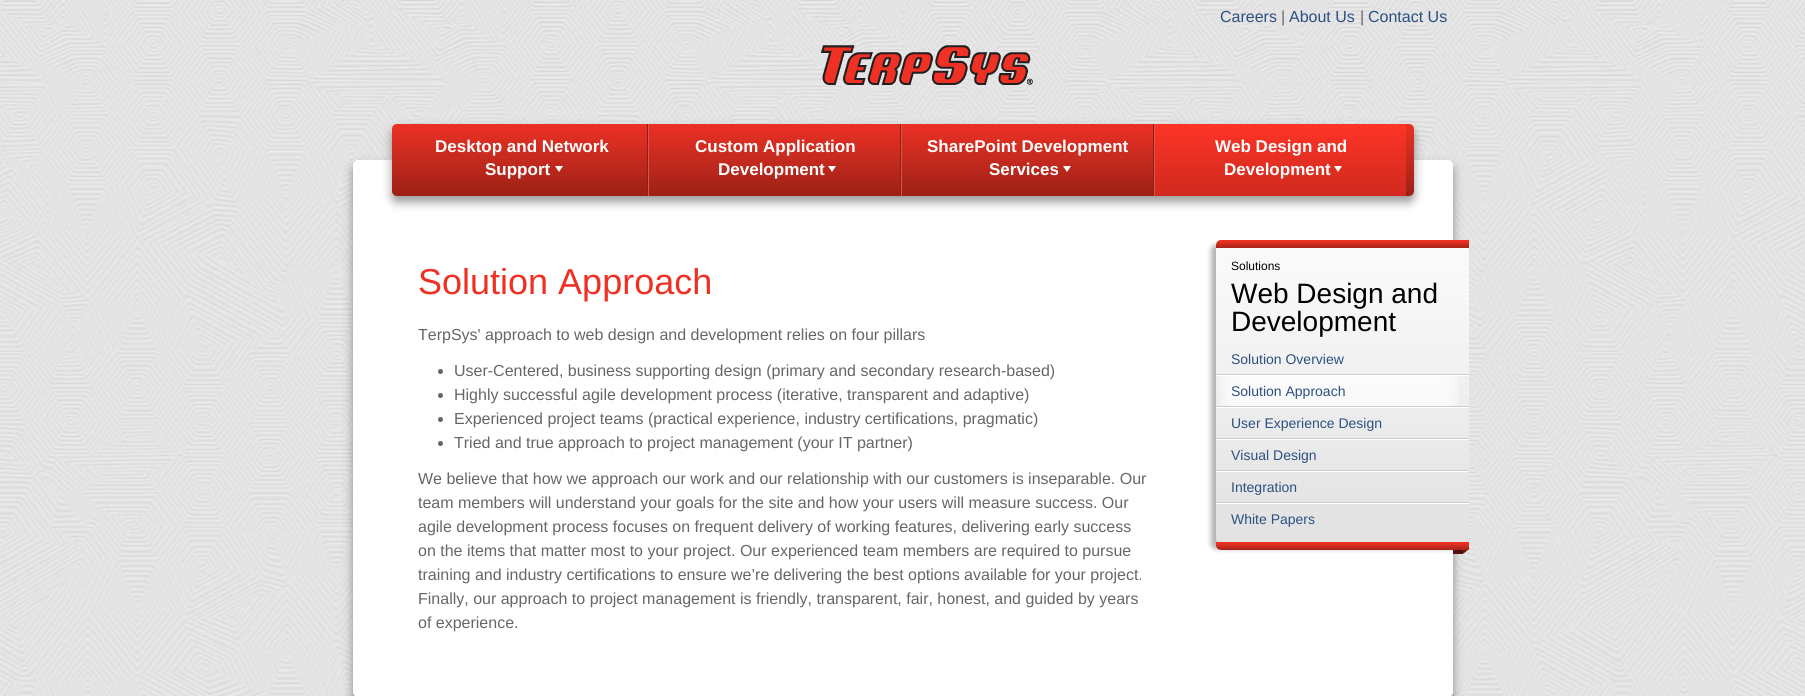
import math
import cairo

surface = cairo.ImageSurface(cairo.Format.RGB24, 1805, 696)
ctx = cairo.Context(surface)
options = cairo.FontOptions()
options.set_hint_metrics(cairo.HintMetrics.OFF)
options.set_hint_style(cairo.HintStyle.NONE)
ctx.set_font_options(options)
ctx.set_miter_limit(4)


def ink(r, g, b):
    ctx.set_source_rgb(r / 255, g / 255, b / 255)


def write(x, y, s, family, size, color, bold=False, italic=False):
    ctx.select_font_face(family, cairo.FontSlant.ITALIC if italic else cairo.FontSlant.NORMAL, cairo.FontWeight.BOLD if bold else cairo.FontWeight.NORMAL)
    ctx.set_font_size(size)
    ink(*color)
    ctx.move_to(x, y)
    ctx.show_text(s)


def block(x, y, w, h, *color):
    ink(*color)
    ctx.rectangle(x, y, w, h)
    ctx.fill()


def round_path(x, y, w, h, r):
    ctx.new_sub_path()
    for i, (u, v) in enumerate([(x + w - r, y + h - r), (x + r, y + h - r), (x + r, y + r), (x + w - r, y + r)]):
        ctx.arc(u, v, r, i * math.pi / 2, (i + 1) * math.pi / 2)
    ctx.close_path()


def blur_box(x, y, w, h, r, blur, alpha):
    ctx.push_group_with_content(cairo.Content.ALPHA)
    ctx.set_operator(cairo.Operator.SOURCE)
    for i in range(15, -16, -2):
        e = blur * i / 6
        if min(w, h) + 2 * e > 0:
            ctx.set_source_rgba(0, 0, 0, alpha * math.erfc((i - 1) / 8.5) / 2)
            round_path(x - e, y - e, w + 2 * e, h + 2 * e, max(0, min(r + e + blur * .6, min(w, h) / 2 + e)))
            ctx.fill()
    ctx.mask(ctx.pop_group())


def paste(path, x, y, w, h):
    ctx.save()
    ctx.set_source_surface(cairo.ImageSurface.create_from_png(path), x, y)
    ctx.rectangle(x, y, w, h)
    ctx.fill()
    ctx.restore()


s1 = dict(family="Liberation Sans", size=16, color=(43, 80, 129))
s2 = dict(family="Liberation Sans", size=16, color=(102, 102, 102))
s3 = dict(family="Liberation Sans", size=17, color=(255, 255, 255), bold=True)
s4 = dict(family="Liberation Sans", size=36, color=(238, 49, 36))
s5 = dict(family="Liberation Sans", size=12, color=(0, 0, 0))
s6 = dict(family="Liberation Sans", size=28, color=(0, 0, 0))
s7 = dict(family="Liberation Sans", size=14, color=(43, 80, 129))

ink(255, 255, 255)
ctx.paint()
paste("pic1.png", 0, 0, 1805, 696)
write(1220, 22, "Careers", **s1)
write(1281, 22, "|", **s2)
write(1289, 22, "About Us", **s1)
write(1360, 22, "|", **s2)
write(1368, 22, "Contact Us", **s1)
paste("pic2.png", 821, 45, 212, 40)
ink(0, 0, 0)
blur_box(353, 166, 1100, 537, 5, 5, 0.4)
ink(255, 255, 255)
round_path(353, 160, 1100, 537, 5)
ctx.fill()
ink(0, 0, 0)
blur_box(392, 130, 1022, 72, 5, 5, 0.4)
gradient = cairo.LinearGradient(903, 124, 903, 196)
gradient.add_color_stop_rgba(0, 0.925, 0.188, 0.145, 1)
gradient.add_color_stop_rgba(0.49, 0.776, 0.165, 0.118, 1)
gradient.add_color_stop_rgba(1, 0.612, 0.125, 0.086, 1)
ctx.set_source(gradient)
round_path(392, 124, 1022, 72, 5)
ctx.fill()
block(647, 124, 1, 72, 143, 29, 22)
write(435, 152, "Desktop and Network", **s3)
write(485, 175, "Support", **s3)
ctx.new_path()
ctx.move_to(559, 172)
ctx.line_to(555, 166)
ctx.line_to(563, 166)
ctx.close_path()
ctx.fill()
block(900, 124, 1, 72, 143, 29, 22)
block(648, 124, 1, 72, 221, 84, 74)
write(695, 152, "Custom Application", **s3)
write(718, 175, "Development", **s3)
ctx.new_path()
ctx.move_to(832, 172)
ctx.line_to(828, 166)
ctx.line_to(836, 166)
ctx.close_path()
ctx.fill()
block(1153, 124, 1, 72, 143, 29, 22)
block(901, 124, 1, 72, 221, 84, 74)
write(927, 152, "SharePoint Development", **s3)
write(989, 175, "Services", **s3)
ctx.new_path()
ctx.move_to(1067, 172)
ctx.line_to(1063, 166)
ctx.line_to(1071, 166)
ctx.close_path()
ctx.fill()
block(1154, 124, 1, 72, 221, 84, 74)
gradient = cairo.LinearGradient(1281, 124, 1281, 196)
gradient.add_color_stop_rgba(0, 0.996, 0.204, 0.149, 1)
gradient.add_color_stop_rgba(0.5, 0.898, 0.184, 0.133, 1)
gradient.add_color_stop_rgba(1, 0.824, 0.165, 0.122, 1)
ctx.set_source(gradient)
ctx.rectangle(1155, 124, 251, 72)
ctx.fill()
write(1215, 152, "Web Design and", **s3)
write(1224, 175, "Development", **s3)
ctx.new_path()
ctx.move_to(1338, 172)
ctx.line_to(1334, 166)
ctx.line_to(1342, 166)
ctx.close_path()
ctx.fill()
write(418, 294, "Solution Approach", **s4)
write(418, 340, "TerpSys' approach to web design and development relies on four pillars", **s2)
ctx.new_path()
ctx.arc(440.5, 371.5, 2.5, 0, 2 * math.pi)
ctx.fill()
write(454, 376, "User-Centered, business supporting design (primary and secondary research-based)", **s2)
ctx.new_path()
ctx.arc(440.5, 395.5, 2.5, 0, 2 * math.pi)
ctx.fill()
write(454, 400, "Highly successful agile development process (iterative, transparent and adaptive)", **s2)
ctx.new_path()
ctx.arc(440.5, 419.5, 2.5, 0, 2 * math.pi)
ctx.fill()
write(454, 424, "Experienced project teams (practical experience, industry certifications, pragmatic)", **s2)
ctx.new_path()
ctx.arc(440.5, 443.5, 2.5, 0, 2 * math.pi)
ctx.fill()
write(454, 448, "Tried and true approach to project management (your IT partner)", **s2)
write(418, 484, "We believe that how we approach our work and our relationship with our customers is inseparable. Our", **s2)
write(418, 508, "team members will understand your goals for the site and how your users will measure success. Our", **s2)
write(418, 532, "agile development process focuses on frequent delivery of working features, delivering early success", **s2)
write(418, 556, "on the items that matter most to your project. Our experienced team members are required to pursue", **s2)
write(418, 580, "training and industry certifications to ensure we’re delivering the best options available for your project.", **s2)
write(418, 604, "Finally, our approach to project management is friendly, transparent, fair, honest, and guided by years", **s2)
write(418, 628, "of experience.", **s2)
ink(0, 0, 0)
blur_box(1211, 245, 253, 304, 5, 2.5, 0.3)
paste("pic3.png", 1216, 240, 253, 302)
write(1231, 270, "Solutions", **s5)
write(1231, 303, "Web Design and", **s6)
write(1231, 331, "Development", **s6)
block(1216, 374, 253, 1, 204, 204, 204)
write(1231, 364, "Solution Overview", **s7)
paste("pic4.png", 1220, 376, 239, 30)
block(1216, 375, 253, 1, 255, 255, 255)
block(1216, 406, 253, 1, 204, 204, 204)
write(1231, 396, "Solution Approach", **s7)
block(1216, 407, 253, 1, 255, 255, 255)
block(1216, 438, 253, 1, 204, 204, 204)
write(1231, 428, "User Experience Design", **s7)
block(1216, 439, 253, 1, 255, 255, 255)
block(1216, 470, 253, 1, 204, 204, 204)
write(1231, 460, "Visual Design", **s7)
block(1216, 471, 253, 1, 255, 255, 255)
block(1216, 502, 253, 1, 204, 204, 204)
write(1231, 492, "Integration", **s7)
block(1216, 503, 253, 1, 255, 255, 255)
write(1231, 524, "White Papers", **s7)
paste("pic5.png", 1216, 542, 253, 12)
surface.write_to_png("screenshot.png")
